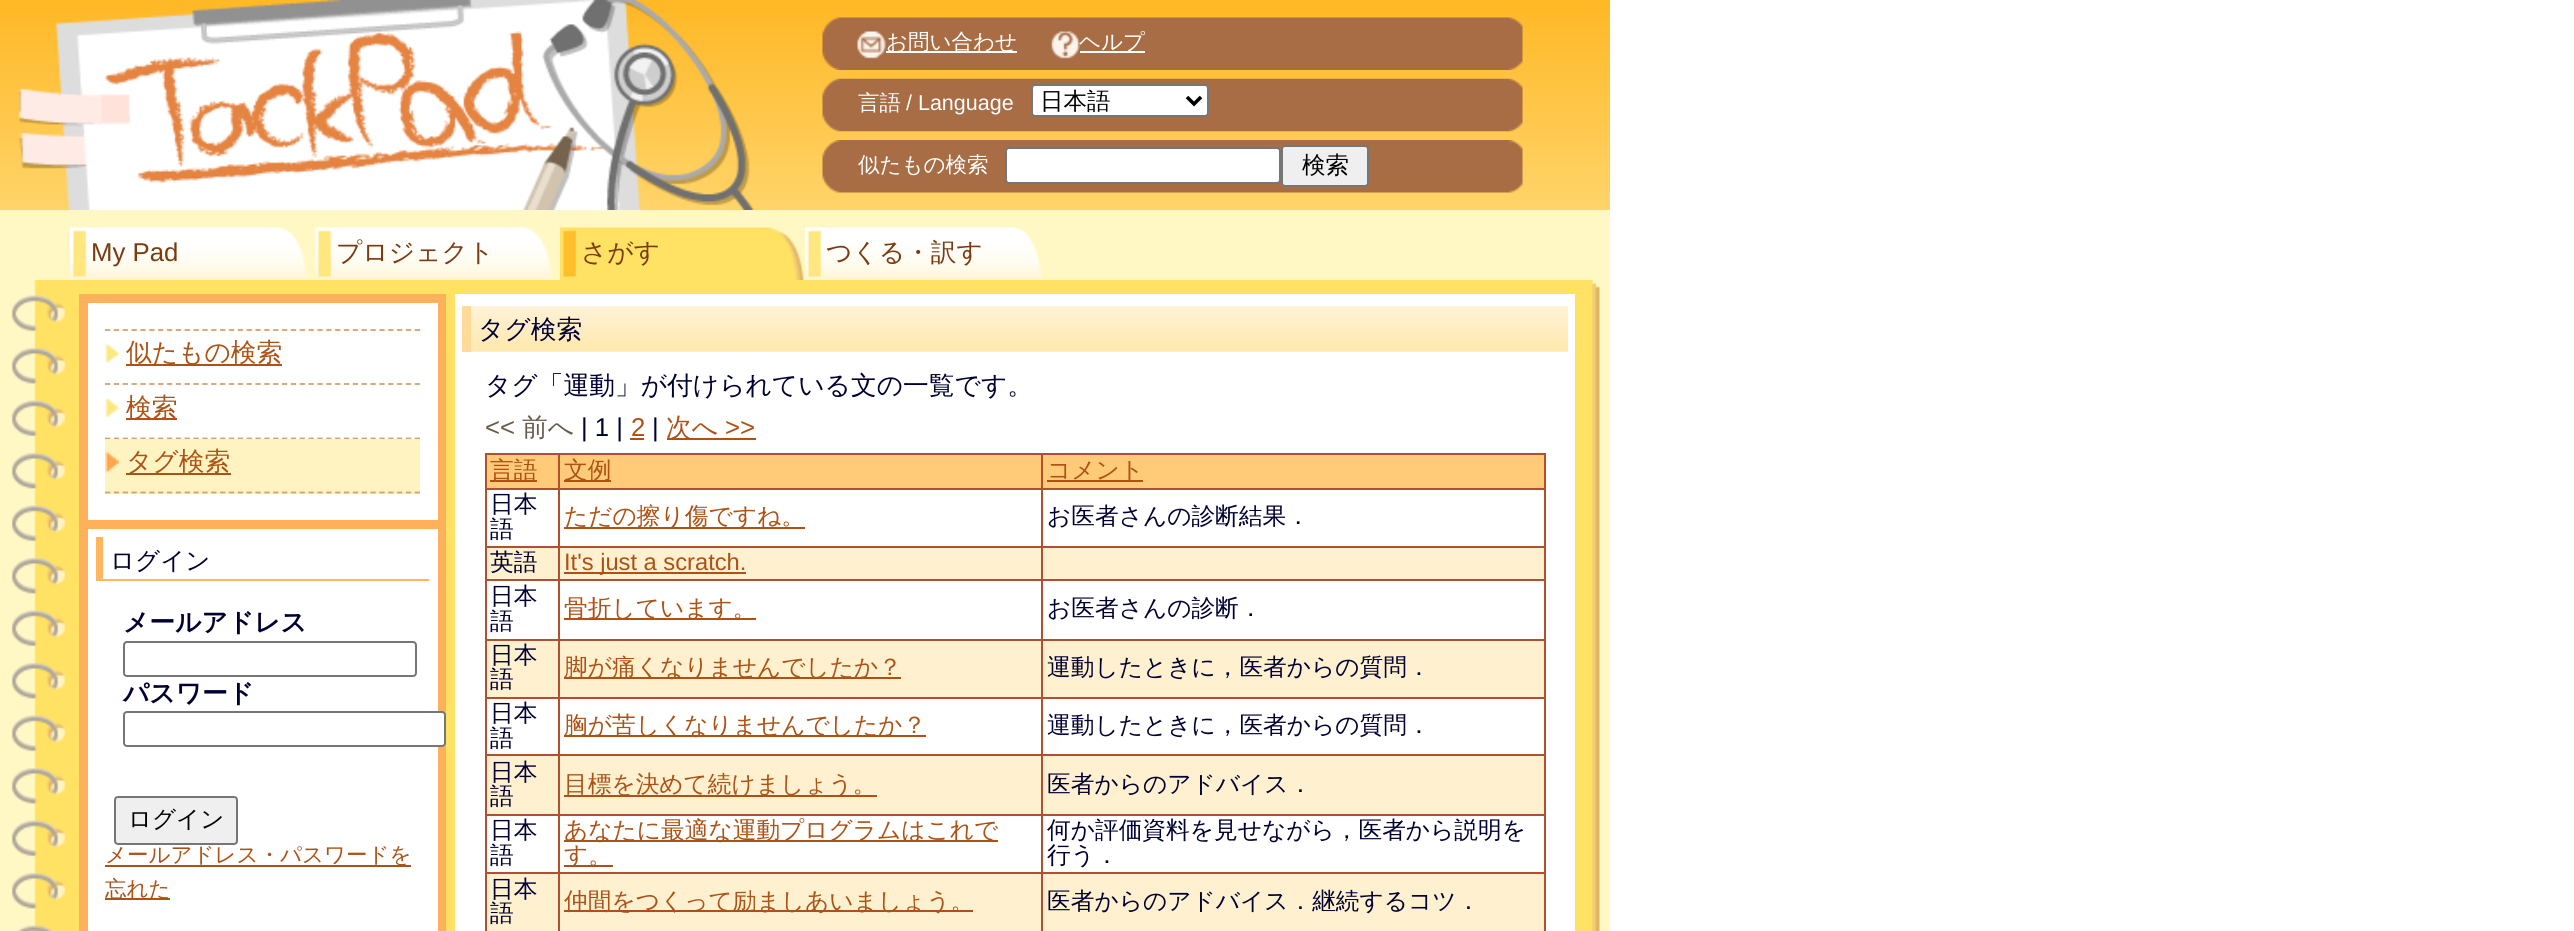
import math
import cairo

surface = cairo.ImageSurface(cairo.Format.RGB24, 2574, 931)
ctx = cairo.Context(surface)
options = cairo.FontOptions()
options.set_hint_metrics(cairo.HintMetrics.OFF)
options.set_hint_style(cairo.HintStyle.NONE)
ctx.set_font_options(options)
ctx.set_miter_limit(4)


def ink(r, g, b):
    ctx.set_source_rgb(r / 255, g / 255, b / 255)


def write(x, y, s, family, size, color, bold=False, italic=False):
    ctx.select_font_face(family, cairo.FontSlant.ITALIC if italic else cairo.FontSlant.NORMAL, cairo.FontWeight.BOLD if bold else cairo.FontWeight.NORMAL)
    ctx.set_font_size(size)
    ink(*color)
    ctx.move_to(x, y)
    ctx.show_text(s)


def block(x, y, w, h, *color):
    ink(*color)
    ctx.rectangle(x, y, w, h)
    ctx.fill()


def round_path(x, y, w, h, r):
    ctx.new_sub_path()
    for i, (u, v) in enumerate([(x + w - r, y + h - r), (x + r, y + h - r), (x + r, y + r), (x + w - r, y + r)]):
        ctx.arc(u, v, r, i * math.pi / 2, (i + 1) * math.pi / 2)
    ctx.close_path()


def paste(path, x, y, w, h):
    ctx.save()
    ctx.set_source_surface(cairo.ImageSurface.create_from_png(path), x, y)
    ctx.rectangle(x, y, w, h)
    ctx.fill()
    ctx.restore()


s1 = dict(family="WenQuanYi Zen Hei Medium", size=21.5, color=(255, 255, 255))
s2 = dict(family="Liberation Sans", size=21.5, color=(255, 255, 255))
s3 = dict(family="WenQuanYi Zen Hei Medium", size=23.5, color=(0, 0, 0))
s4 = dict(family="Liberation Sans", size=25.75, color=(122, 59, 16))
s5 = dict(family="WenQuanYi Zen Hei Medium", size=25.75, color=(122, 59, 16))
s6 = dict(family="WenQuanYi Zen Hei Medium", size=25.75, color=(173, 81, 20))
s7 = dict(family="WenQuanYi Zen Hei Medium", size=24.5, color=(0, 0, 51))
s8 = dict(family="WenQuanYi Zen Hei", size=25.75, color=(0, 0, 51), bold=True)
s9 = dict(family="WenQuanYi Zen Hei Medium", size=21.5, color=(173, 81, 20))
s10 = dict(family="WenQuanYi Zen Hei Medium", size=25.75, color=(0, 0, 51))
s11 = dict(family="Liberation Sans", size=25.75, color=(104, 93, 77))
s12 = dict(family="WenQuanYi Zen Hei Medium", size=25.75, color=(104, 93, 77))
s13 = dict(family="Liberation Sans", size=25.75, color=(0, 0, 51))
s14 = dict(family="Liberation Sans", size=25.75, color=(173, 81, 20))
s15 = dict(family="WenQuanYi Zen Hei Medium", size=23.7, color=(173, 81, 20))
s16 = dict(family="WenQuanYi Zen Hei Medium", size=23.7, color=(0, 0, 51))
s17 = dict(family="Liberation Sans", size=23.7, color=(173, 81, 20))

ink(255, 255, 255)
ctx.paint()
block(0, 210, 1610, 721, 255, 248, 197)
paste("pic1.png", 0, 0, 1610, 210)
paste("pic2.png", 18, 0, 737, 210)
paste("pic3.png", 822, 17, 701, 53)
paste("pic4.png", 857, 31, 29, 28)
block(886, 51, 131, 2, 255, 255, 255)
write(886, 49, "お問い合わせ", **s1)
paste("pic5.png", 1051, 31, 29, 28)
block(1080, 51, 65, 2, 255, 255, 255)
write(1079, 49, "ヘルプ", **s1)
paste("pic6.png", 822, 78, 701, 54)
write(858, 110, "言語", **s1)
write(906, 110, "/ Language", **s2)
round_path(1032, 85, 176, 31, 3)
ctx.fill_preserve()
ink(118, 118, 118)
ctx.stroke()
ctx.new_path()
ctx.move_to(1187, 97)
ctx.line_to(1194, 104)
ctx.line_to(1201, 97)
ink(0, 0, 0)
ctx.set_line_width(3.5)
ctx.stroke()
write(1040, 109, "日本語", **s3)
paste("pic7.png", 822, 140, 701, 53)
write(858, 172, "似たもの検索", **s1)
round_path(1006, 148, 274, 35, 3)
ctx.fill_preserve()
ink(118, 118, 118)
ctx.set_line_width(2)
ctx.stroke()
ink(239, 239, 239)
round_path(1282, 146, 86, 40, 3)
ctx.fill_preserve()
ink(118, 118, 118)
ctx.stroke()
write(1302, 173, "検索", **s3)
paste("pic8.png", 34, 280, 1566, 14)
paste("pic9.png", 70, 227, 237, 53)
write(91, 261, "My Pad", **s4)
paste("pic9.png", 315, 227, 237, 53)
write(336, 261, "プロジェクト", **s5)
paste("pic10.png", 560, 227, 244, 53)
write(581, 261, "さがす", **s5)
paste("pic11.png", 805, 227, 237, 53)
write(826, 261, "つくる・訳す", **s5)
paste("pic12.png", 11, 294, 1589, 637)
block(79, 294, 367, 637, 255, 176, 90)
block(88, 303, 350, 217, 255, 255, 255)
ctx.new_path()
ctx.move_to(105, 330)
ctx.line_to(420, 330)
ink(216, 159, 113)
ctx.set_line_width(1.8)
ctx.set_dash([5.25, 3.6])
ctx.stroke()
ctx.new_path()
ctx.move_to(105, 384)
ctx.line_to(420, 384)
ctx.stroke()
paste("pic13.png", 105, 343, 14, 21)
block(126, 364, 156, 2, 173, 81, 20)
write(126, 361, "似たもの検索", **s6)
ctx.new_path()
ctx.move_to(105, 438.5)
ctx.line_to(420, 438.5)
ink(216, 159, 113)
ctx.stroke()
paste("pic14.png", 105, 397, 14, 21)
block(126, 418, 51, 2, 173, 81, 20)
write(126, 416, "検索", **s6)
block(105, 439, 315, 55, 255, 243, 194)
ctx.new_path()
ctx.move_to(105, 492.5)
ctx.line_to(420, 492.5)
ink(216, 159, 113)
ctx.stroke()
paste("pic15.png", 105, 451, 14, 22)
block(126, 473, 105, 2, 173, 81, 20)
write(126, 470, "タグ検索", **s6)
block(88, 529, 350, 402, 255, 255, 255)
block(96, 579, 333, 2, 255, 182, 95)
block(96, 537, 7, 44, 255, 182, 95)
write(110, 569, "ログイン", **s7)
write(123, 631, "メールアドレス", **s8)
round_path(124, 642, 292, 34, 3)
ink(118, 118, 118)
ctx.set_line_width(2)
ctx.set_dash([])
ctx.stroke()
write(123, 702, "パスワード", **s8)
ink(255, 255, 255)
round_path(124, 712, 321, 34, 3)
ctx.fill_preserve()
ink(118, 118, 118)
ctx.stroke()
ink(239, 239, 239)
round_path(115, 797, 122, 47, 3)
ctx.fill_preserve()
ink(118, 118, 118)
ctx.stroke()
write(128, 827, "ログイン", **s3)
block(105, 865, 306, 2, 173, 81, 20)
write(105, 862, "メールアドレス・パスワードを", **s9)
block(105, 898, 65, 2, 173, 81, 20)
write(105, 896, "忘れた", **s9)
block(455, 294, 1120, 637, 255, 255, 255)
paste("pic16.png", 471, 306, 1097, 46)
block(462, 306, 9, 46, 255, 218, 153)
write(478, 338, "タグ検索", **s10)
write(485, 394, "タグ「運動」が付けられている文の一覧です。", **s10)
write(485, 436, "<<", **s11)
write(522, 436, "前へ", **s12)
write(581, 436, "| 1 |", **s13)
write(631, 436, "2", **s14)
block(630, 438, 14, 2, 173, 81, 20)
write(652, 436, "|", **s13)
block(667, 438, 89, 2, 173, 81, 20)
write(666, 436, "次へ", **s6)
write(725, 436, ">>", **s14)
block(487, 455, 71, 33, 255, 203, 120)
block(1041, 453, 504, 2, 178, 79, 48)
block(1041, 488, 504, 2, 178, 79, 48)
block(1041, 546, 504, 2, 178, 79, 48)
block(1041, 579, 504, 2, 178, 79, 48)
block(1041, 639, 504, 2, 178, 79, 48)
block(1041, 697, 504, 2, 178, 79, 48)
block(1041, 754, 504, 2, 178, 79, 48)
block(1041, 814, 504, 2, 178, 79, 48)
block(1041, 872, 504, 2, 178, 79, 48)
block(1041, 872, 2, 59, 178, 79, 48)
block(558, 872, 485, 2, 178, 79, 48)
block(1041, 814, 2, 59, 178, 79, 48)
block(558, 814, 485, 2, 178, 79, 48)
block(1041, 754, 2, 62, 178, 79, 48)
block(558, 754, 485, 2, 178, 79, 48)
block(1041, 697, 2, 59, 178, 79, 48)
block(558, 697, 485, 2, 178, 79, 48)
block(1041, 639, 2, 59, 178, 79, 48)
block(558, 639, 485, 2, 178, 79, 48)
block(1041, 579, 2, 62, 178, 79, 48)
block(558, 579, 485, 2, 178, 79, 48)
block(1041, 546, 2, 35, 178, 79, 48)
block(558, 546, 485, 2, 178, 79, 48)
block(1041, 488, 2, 60, 178, 79, 48)
block(558, 488, 485, 2, 178, 79, 48)
block(1041, 453, 2, 37, 178, 79, 48)
block(558, 453, 485, 2, 178, 79, 48)
block(558, 872, 2, 59, 178, 79, 48)
block(485, 872, 75, 2, 178, 79, 48)
block(558, 814, 2, 59, 178, 79, 48)
block(485, 814, 75, 2, 178, 79, 48)
block(558, 754, 2, 62, 178, 79, 48)
block(485, 754, 75, 2, 178, 79, 48)
block(558, 697, 2, 59, 178, 79, 48)
block(485, 697, 75, 2, 178, 79, 48)
block(558, 639, 2, 59, 178, 79, 48)
block(485, 639, 75, 2, 178, 79, 48)
block(558, 579, 2, 62, 178, 79, 48)
block(485, 579, 75, 2, 178, 79, 48)
block(558, 546, 2, 35, 178, 79, 48)
block(485, 546, 75, 2, 178, 79, 48)
block(558, 488, 2, 60, 178, 79, 48)
block(485, 488, 75, 2, 178, 79, 48)
block(558, 453, 2, 37, 178, 79, 48)
block(485, 453, 75, 2, 178, 79, 48)
block(485, 872, 2, 59, 178, 79, 48)
block(485, 814, 2, 59, 178, 79, 48)
block(485, 754, 2, 62, 178, 79, 48)
block(485, 697, 2, 59, 178, 79, 48)
block(485, 639, 2, 59, 178, 79, 48)
block(485, 579, 2, 62, 178, 79, 48)
block(485, 546, 2, 35, 178, 79, 48)
block(485, 488, 2, 60, 178, 79, 48)
block(485, 453, 2, 37, 178, 79, 48)
block(490, 480, 47, 2, 173, 81, 20)
write(490, 478, "言語", **s15)
block(560, 455, 481, 33, 255, 203, 120)
block(564, 480, 47, 2, 173, 81, 20)
write(564, 478, "文例", **s15)
block(1043, 455, 501, 33, 255, 203, 120)
block(1544, 872, 2, 59, 178, 79, 48)
block(1544, 814, 2, 59, 178, 79, 48)
block(1544, 754, 2, 62, 178, 79, 48)
block(1544, 697, 2, 59, 178, 79, 48)
block(1544, 639, 2, 59, 178, 79, 48)
block(1544, 579, 2, 62, 178, 79, 48)
block(1544, 546, 2, 35, 178, 79, 48)
block(1544, 488, 2, 60, 178, 79, 48)
block(1544, 453, 2, 37, 178, 79, 48)
block(1047, 480, 96, 2, 173, 81, 20)
write(1047, 478, "コメント", **s15)
write(490, 512, "日本", **s16)
write(490, 537, "語", **s16)
block(564, 527, 241, 2, 173, 81, 20)
write(564, 524, "ただの擦り傷ですね。", **s15)
write(1047, 524, "お医者さんの診断結果．", **s16)
block(487, 548, 71, 31, 255, 240, 207)
write(490, 570, "英語", **s16)
block(560, 548, 481, 31, 255, 240, 207)
block(564, 572, 182, 2, 173, 81, 20)
write(564, 570, "It's just a scratch.", **s17)
block(1043, 548, 501, 31, 255, 240, 207)
write(490, 604, "日本", **s16)
write(490, 629, "語", **s16)
block(564, 618, 192, 2, 173, 81, 20)
write(564, 616, "骨折しています。", **s15)
write(1047, 616, "お医者さんの診断．", **s16)
block(487, 641, 71, 56, 255, 240, 207)
write(490, 663, "日本", **s16)
write(490, 687, "語", **s16)
block(560, 641, 481, 56, 255, 240, 207)
block(564, 677, 337, 2, 173, 81, 20)
write(564, 675, "脚が痛くなりませんでしたか？", **s15)
block(1043, 641, 501, 56, 255, 240, 207)
write(1047, 675, "運動したときに，医者からの質問．", **s16)
write(490, 721, "日本", **s16)
write(490, 746, "語", **s16)
block(564, 735, 362, 2, 173, 81, 20)
write(564, 733, "胸が苦しくなりませんでしたか？", **s15)
write(1047, 733, "運動したときに，医者からの質問．", **s16)
block(487, 756, 71, 58, 255, 240, 207)
write(490, 780, "日本", **s16)
write(490, 804, "語", **s16)
block(560, 756, 481, 58, 255, 240, 207)
block(564, 795, 313, 2, 173, 81, 20)
write(564, 792, "目標を決めて続けましょう。", **s15)
block(1043, 756, 501, 58, 255, 240, 207)
write(1047, 792, "医者からのアドバイス．", **s16)
write(490, 838, "日本", **s16)
write(490, 863, "語", **s16)
block(564, 840, 434, 2, 173, 81, 20)
write(564, 838, "あなたに最適な運動プログラムはこれで", **s15)
block(564, 865, 49, 2, 173, 81, 20)
write(564, 863, "す。", **s15)
write(1047, 838, "何か評価資料を見せながら，医者から説明を", **s16)
write(1047, 863, "行う．", **s16)
block(487, 874, 71, 57, 255, 240, 207)
write(490, 897, "日本", **s16)
write(490, 921, "語", **s16)
block(560, 874, 481, 57, 255, 240, 207)
block(564, 910, 409, 2, 173, 81, 20)
write(564, 909, "仲間をつくって励ましあいましょう。", **s15)
block(1043, 874, 501, 57, 255, 240, 207)
write(1047, 909, "医者からのアドバイス．継続するコツ．", **s16)
surface.write_to_png("screenshot.png")
